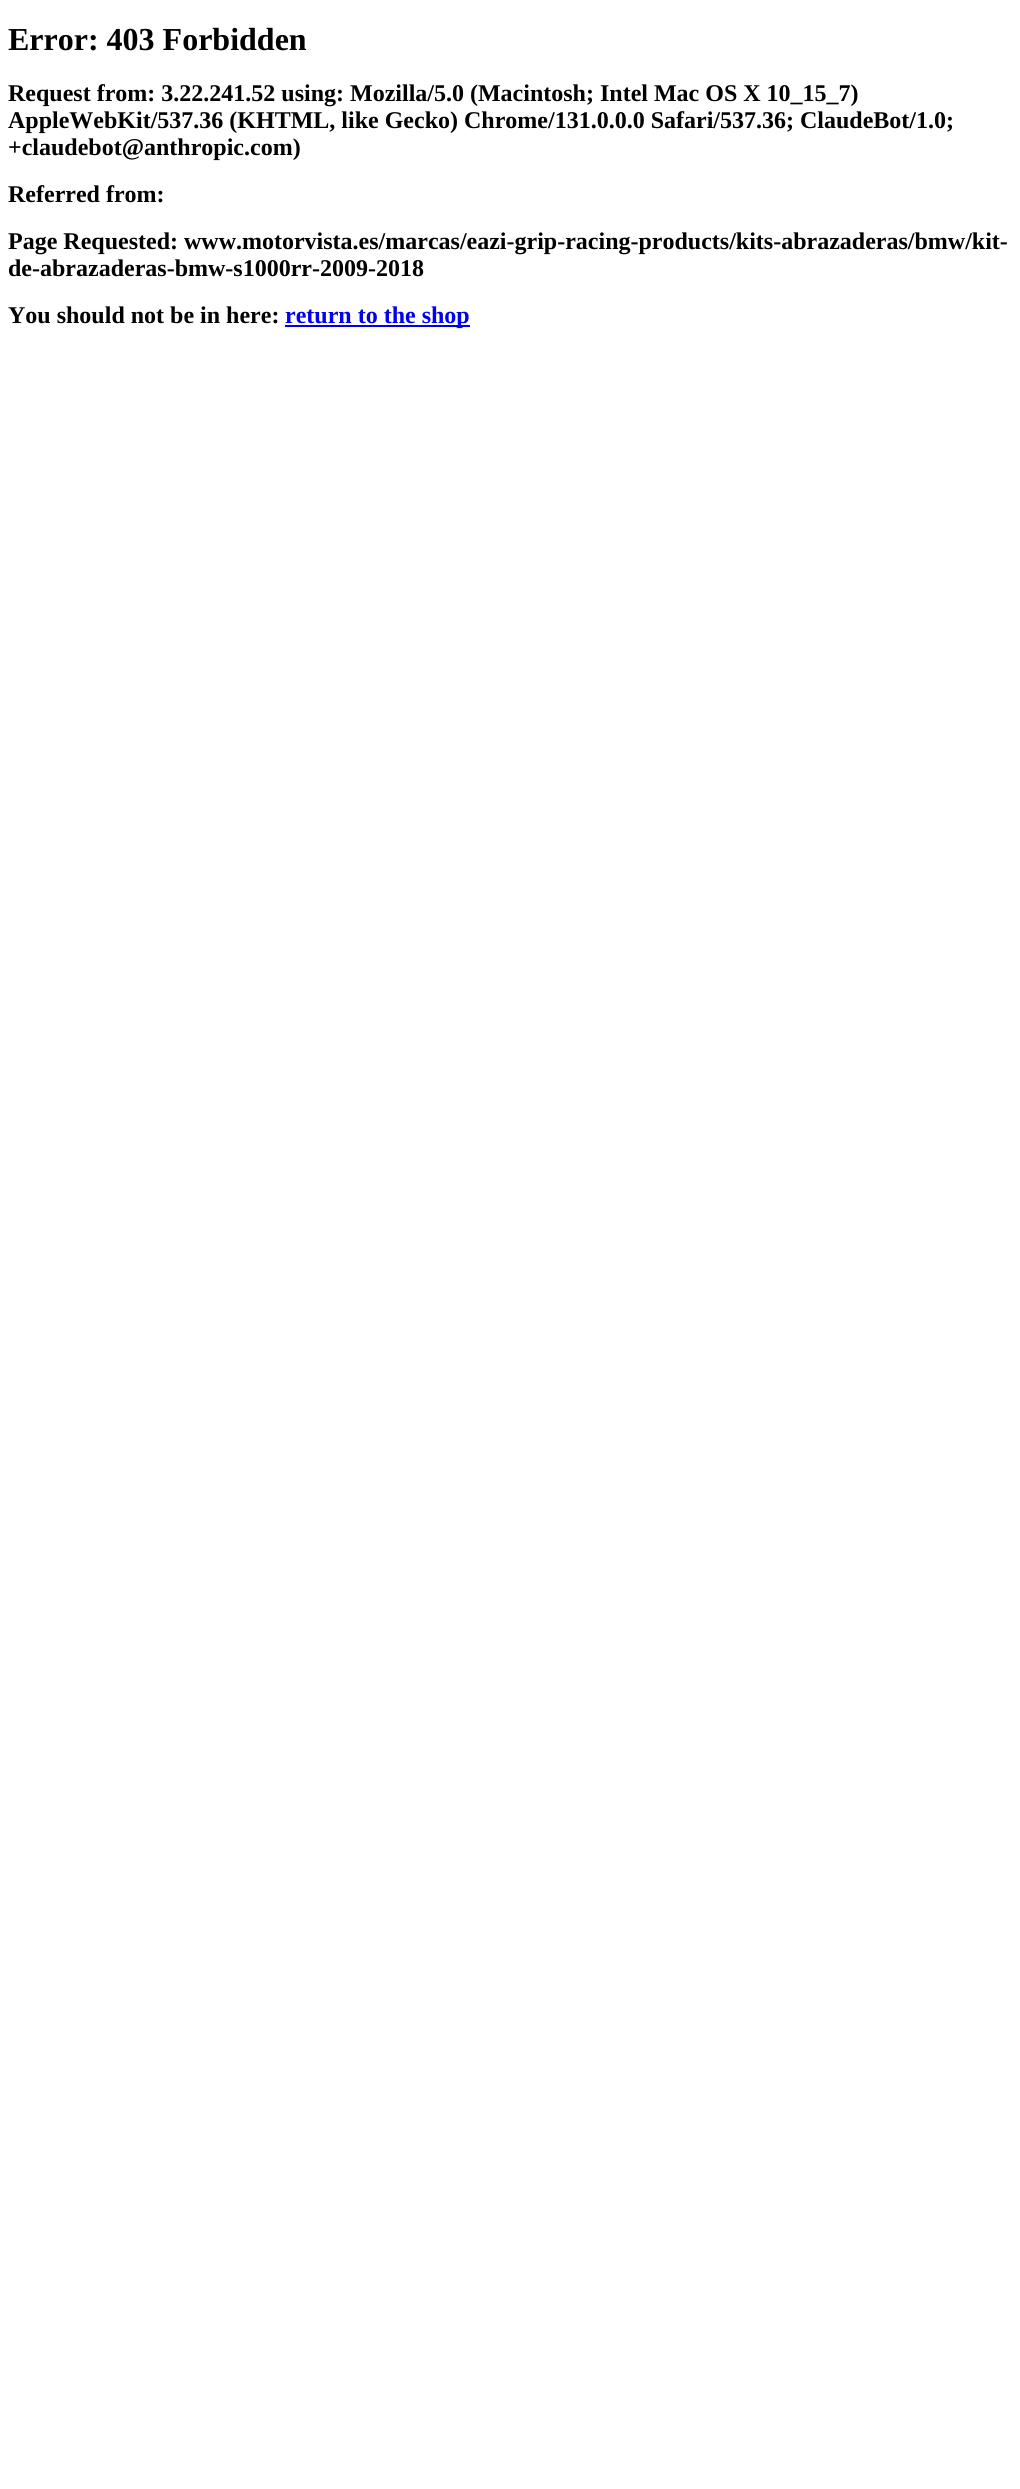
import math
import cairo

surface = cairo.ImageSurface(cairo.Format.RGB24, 1020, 2489)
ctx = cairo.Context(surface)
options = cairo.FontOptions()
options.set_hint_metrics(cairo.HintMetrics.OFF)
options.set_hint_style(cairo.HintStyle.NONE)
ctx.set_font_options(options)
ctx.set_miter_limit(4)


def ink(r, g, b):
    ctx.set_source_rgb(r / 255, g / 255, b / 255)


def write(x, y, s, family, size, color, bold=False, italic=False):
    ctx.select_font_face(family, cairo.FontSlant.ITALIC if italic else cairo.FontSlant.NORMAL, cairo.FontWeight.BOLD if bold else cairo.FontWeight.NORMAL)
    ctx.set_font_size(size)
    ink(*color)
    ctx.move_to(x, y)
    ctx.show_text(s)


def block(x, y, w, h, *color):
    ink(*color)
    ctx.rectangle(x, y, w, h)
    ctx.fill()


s1 = dict(family="Liberation Serif", size=32, color=(0, 0, 0), bold=True)
s2 = dict(family="Liberation Serif", size=24, color=(0, 0, 0), bold=True)
s3 = dict(family="Liberation Serif", size=24, color=(0, 0, 238), bold=True)

ink(255, 255, 255)
ctx.paint()
write(8, 50, "Error: 403 Forbidden", **s1)
write(8, 101, "Request from: 3.22.241.52 using: Mozilla/5.0 (Macintosh; Intel Mac OS X 10_15_7)", **s2)
write(8, 128, "AppleWebKit/537.36 (KHTML, like Gecko) Chrome/131.0.0.0 Safari/537.36; ClaudeBot/1.0;", **s2)
write(8, 155, "+claudebot@anthropic.com)", **s2)
write(8, 202, "Referred from:", **s2)
write(8, 249, "Page Requested: www.motorvista.es/marcas/eazi-grip-racing-products/kits-abrazaderas/bmw/kit-", **s2)
write(8, 276, "de-abrazaderas-bmw-s1000rr-2009-2018", **s2)
write(8, 323, "You should not be in here:", **s2)
block(285, 325, 185, 2, 0, 0, 238)
write(285, 323, "return to the shop", **s3)
surface.write_to_png("screenshot.png")
